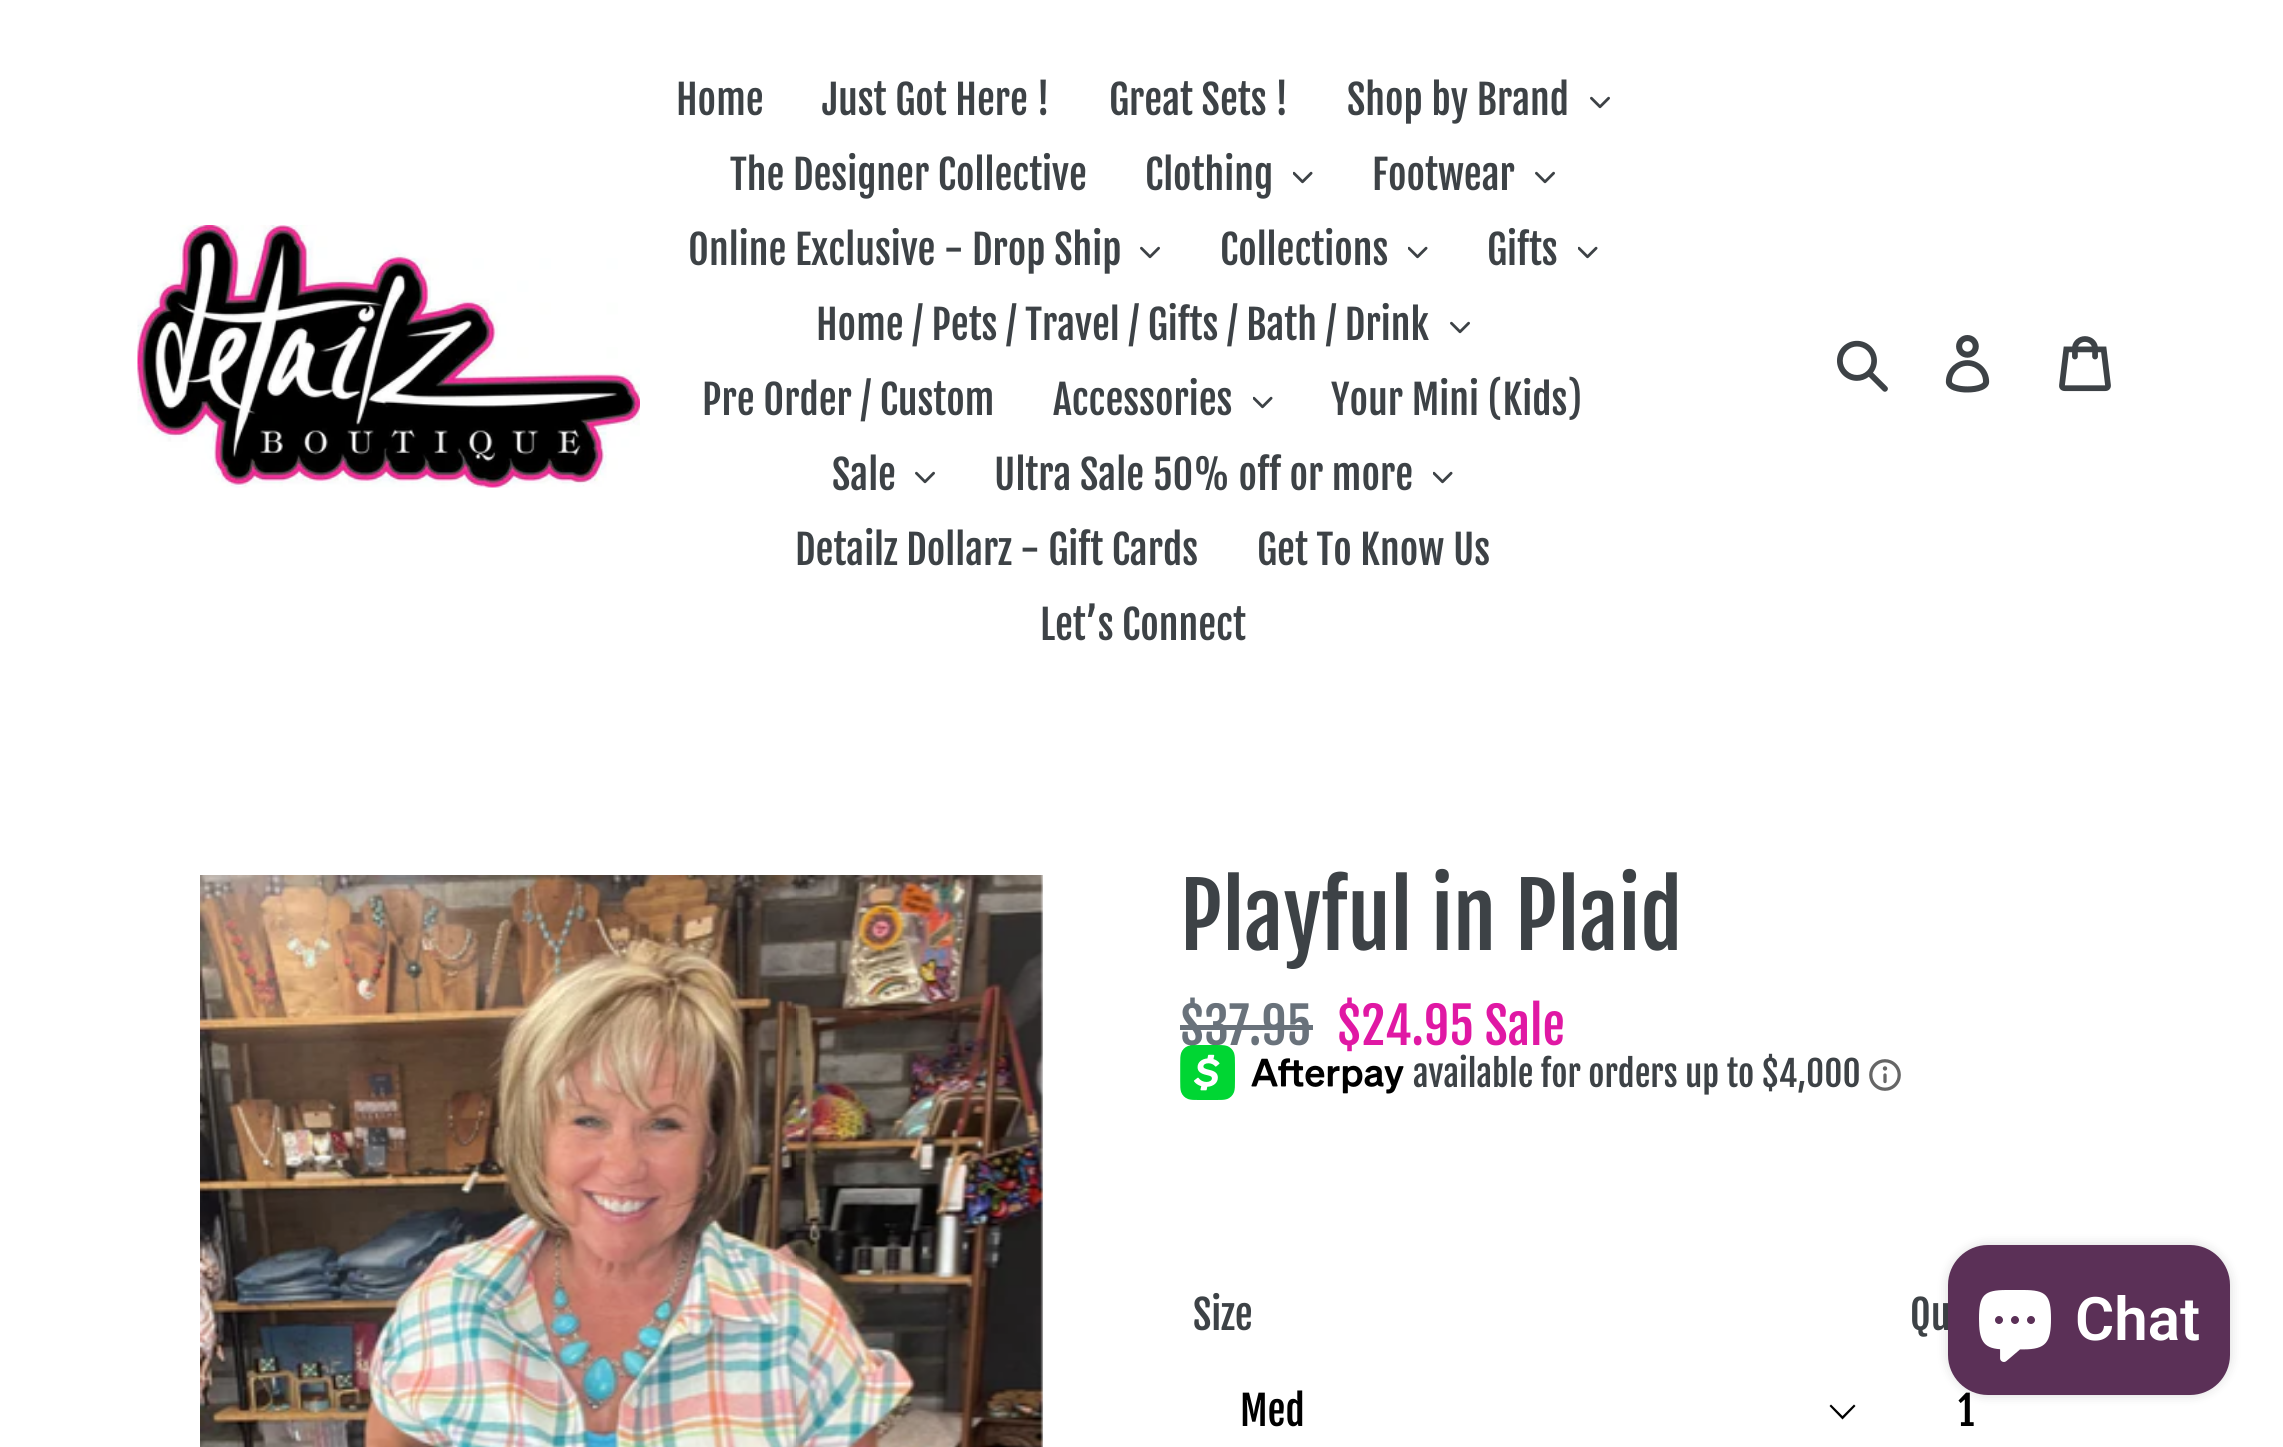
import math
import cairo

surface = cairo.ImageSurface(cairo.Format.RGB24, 2283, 1447)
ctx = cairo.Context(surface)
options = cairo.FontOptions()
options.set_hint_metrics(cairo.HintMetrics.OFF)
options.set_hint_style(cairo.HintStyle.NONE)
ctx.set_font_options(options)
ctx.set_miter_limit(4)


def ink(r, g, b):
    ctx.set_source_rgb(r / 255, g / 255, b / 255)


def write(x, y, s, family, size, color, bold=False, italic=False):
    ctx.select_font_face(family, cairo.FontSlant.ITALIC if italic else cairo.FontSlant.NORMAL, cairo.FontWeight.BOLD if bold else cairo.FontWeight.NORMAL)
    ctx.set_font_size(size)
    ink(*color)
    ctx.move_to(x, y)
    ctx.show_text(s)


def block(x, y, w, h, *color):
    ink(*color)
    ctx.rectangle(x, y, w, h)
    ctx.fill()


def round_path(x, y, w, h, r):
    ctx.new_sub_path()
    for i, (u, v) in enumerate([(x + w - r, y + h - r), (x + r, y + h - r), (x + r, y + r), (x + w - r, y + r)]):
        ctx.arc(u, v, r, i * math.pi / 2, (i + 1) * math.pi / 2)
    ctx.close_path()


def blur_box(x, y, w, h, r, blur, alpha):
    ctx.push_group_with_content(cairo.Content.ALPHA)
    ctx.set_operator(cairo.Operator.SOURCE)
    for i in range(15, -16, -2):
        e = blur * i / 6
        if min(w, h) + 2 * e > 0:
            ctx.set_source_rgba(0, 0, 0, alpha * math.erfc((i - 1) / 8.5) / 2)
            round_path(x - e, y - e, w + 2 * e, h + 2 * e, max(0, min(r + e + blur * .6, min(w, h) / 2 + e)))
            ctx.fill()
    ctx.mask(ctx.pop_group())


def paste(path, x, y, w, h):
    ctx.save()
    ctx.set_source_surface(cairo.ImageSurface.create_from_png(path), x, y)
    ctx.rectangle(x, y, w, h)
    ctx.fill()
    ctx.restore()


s1 = dict(family="Fjalla One", size=40, color=(61, 66, 70))
s2 = dict(family="Fjalla One", size=87.5, color=(61, 66, 70))
s3 = dict(family="Fjalla One", size=50, color=(105, 114, 123))
s4 = dict(family="Fjalla One", size=50, color=(224, 24, 164))
s5 = dict(family="Fjalla One", size=35, color=(61, 66, 70))
s6 = dict(family="Fjalla One", size=40, color=(0, 0, 0))
s7 = dict(family="Roboto SemiBold", size=60, color=(255, 255, 255))

ink(255, 255, 255)
ctx.paint()
paste("pic1.png", 137, 225, 503, 263)
write(676, 115, "Home", **s1)
write(822, 115, "Just Got Here !", **s1)
write(1109, 115, "Great Sets !", **s1)
write(1347, 115, "Shop by Brand", **s1)
paste("pic2.png", 1590, 96, 20, 13)
write(730, 190, "The Designer Collective", **s1)
write(1145, 190, "Clothing", **s1)
paste("pic3.png", 1293, 171, 20, 13)
write(1372, 190, "Footwear", **s1)
paste("pic2.png", 1535, 171, 20, 13)
write(688, 265, "Online Exclusive - Drop Ship", **s1)
paste("pic2.png", 1140, 246, 20, 13)
write(1220, 265, "Collections", **s1)
paste("pic3.png", 1408, 246, 20, 13)
write(1487, 265, "Gifts", **s1)
paste("pic3.png", 1578, 246, 20, 13)
write(816, 340, "Home / Pets / Travel / Gifts / Bath / Drink", **s1)
paste("pic2.png", 1450, 321, 20, 13)
write(702, 415, "Pre Order / Custom", **s1)
write(1053, 415, "Accessories", **s1)
paste("pic3.png", 1253, 396, 20, 13)
write(1331, 415, "Your Mini (Kids)", **s1)
write(832, 490, "Sale", **s1)
paste("pic2.png", 915, 471, 20, 13)
write(994, 490, "Ultra Sale 50% off or more", **s1)
paste("pic3.png", 1433, 471, 20, 13)
write(795, 565, "Detailz Dollarz - Gift Cards", **s1)
write(1257, 565, "Get To Know Us", **s1)
write(1040, 640, "Let’s Connect", **s1)
paste("pic4.png", 1837, 340, 51, 52)
paste("pic5.png", 1945, 335, 45, 58)
paste("pic6.png", 2059, 336, 52, 56)
paste("pic7.png", 200, 875, 843, 572)
write(1180, 950, "Playful in Plaid", **s2)
write(1180, 1045, "$37.95", **s3)
block(1180, 1025, 133, 5, 105, 114, 123)
write(1337, 1045, "$24.95 Sale", **s4)
paste("pic8.png", 1180, 1045, 224, 55)
write(1413, 1087, "available for orders up to $4,000", **s5)
paste("pic9.png", 1869, 1059, 32, 32)
write(1193, 1330, "Size", **s1)
ink(0, 0, 0)
ctx.new_path()
ctx.move_to(1842.5, 1419.5)
ctx.line_to(1829.5, 1406)
ctx.line_to(1831, 1404.5)
ctx.line_to(1842.5, 1416)
ctx.line_to(1854, 1404.5)
ctx.line_to(1855.5, 1406)
ctx.close_path()
ctx.fill()
write(1240, 1426, "Med", **s6)
write(1910, 1330, "Qu", **s1)
write(1958, 1426, "1", **s6)
ink(0, 0, 0)
blur_box(1948, 1245, 282, 150, 40, 6, 0.15)
ink(91, 48, 87)
round_path(1948, 1245, 282, 150, 40)
ctx.fill()
paste("pic10.png", 1979, 1290, 72, 72)
write(2075, 1340, "Chat", **s7)
surface.write_to_png("screenshot.png")
